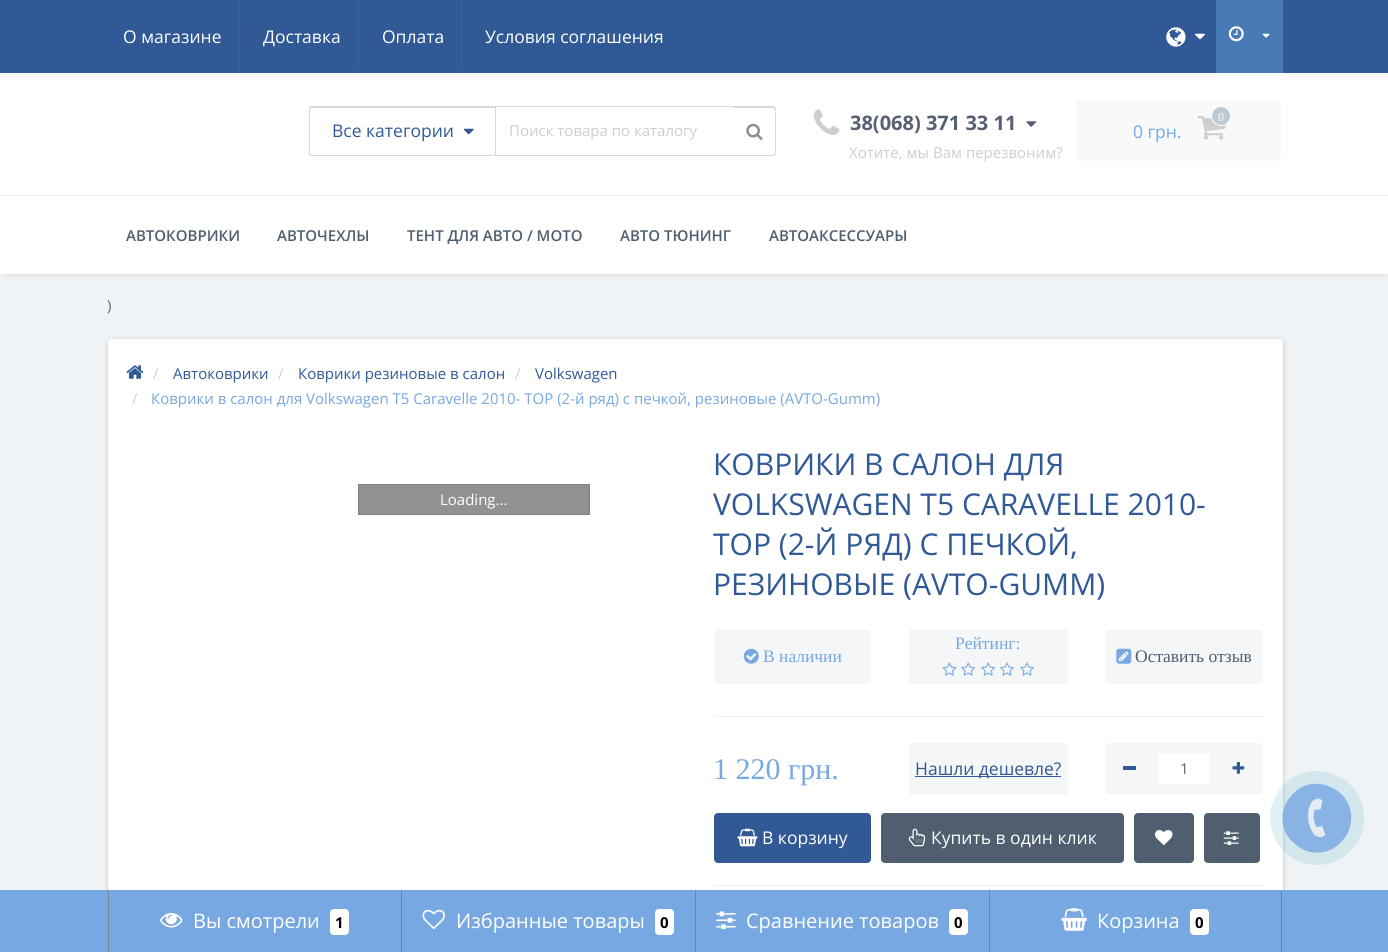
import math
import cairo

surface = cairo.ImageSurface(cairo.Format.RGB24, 1388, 952)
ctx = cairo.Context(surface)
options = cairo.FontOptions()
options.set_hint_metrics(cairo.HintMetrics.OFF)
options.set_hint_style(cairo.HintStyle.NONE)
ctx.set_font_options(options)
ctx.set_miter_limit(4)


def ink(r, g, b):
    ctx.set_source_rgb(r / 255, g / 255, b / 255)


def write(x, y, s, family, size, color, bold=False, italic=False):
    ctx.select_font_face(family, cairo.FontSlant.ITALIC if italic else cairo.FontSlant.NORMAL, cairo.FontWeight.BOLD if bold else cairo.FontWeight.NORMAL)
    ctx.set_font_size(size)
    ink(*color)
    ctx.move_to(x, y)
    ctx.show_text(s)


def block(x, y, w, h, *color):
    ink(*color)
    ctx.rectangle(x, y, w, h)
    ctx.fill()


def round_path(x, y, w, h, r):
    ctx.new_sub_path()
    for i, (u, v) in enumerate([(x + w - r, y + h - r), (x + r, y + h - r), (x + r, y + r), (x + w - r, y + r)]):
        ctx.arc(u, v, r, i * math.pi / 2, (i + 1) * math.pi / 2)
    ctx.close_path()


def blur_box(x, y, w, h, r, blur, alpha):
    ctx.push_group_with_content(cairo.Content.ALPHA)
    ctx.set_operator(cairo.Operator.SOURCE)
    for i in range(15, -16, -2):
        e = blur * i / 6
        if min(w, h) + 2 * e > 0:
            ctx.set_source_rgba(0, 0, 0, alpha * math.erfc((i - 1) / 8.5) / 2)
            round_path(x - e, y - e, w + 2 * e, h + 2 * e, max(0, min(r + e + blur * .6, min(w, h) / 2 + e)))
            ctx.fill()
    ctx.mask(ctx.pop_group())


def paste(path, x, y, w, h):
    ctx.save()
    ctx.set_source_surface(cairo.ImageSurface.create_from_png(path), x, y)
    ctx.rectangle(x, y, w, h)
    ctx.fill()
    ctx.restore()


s1 = dict(family="Open Sans", size=17.5, color=(255, 255, 255))
s2 = dict(family="Open Sans", size=17.5, color=(48, 89, 149))
s3 = dict(family="Open Sans", size=15, color=(206, 206, 206))
s4 = dict(family="Open Sans", size=20, color=(86, 96, 114), bold=True)
s5 = dict(family="Liberation Serif", size=12, color=(255, 255, 255))
s6 = dict(family="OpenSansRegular", size=17.5, color=(119, 168, 226))
s7 = dict(family="Open Sans SemiBold", size=15, color=(79, 95, 111))
s8 = dict(family="Open Sans", size=15, color=(102, 102, 102))
s9 = dict(family="Open Sans", size=15, color=(48, 89, 149))
s10 = dict(family="Open Sans", size=15, color=(119, 168, 226))
s11 = dict(family="Open Sans", size=15, color=(255, 255, 255))
s12 = dict(family="OpenSansRegular", size=30, color=(48, 89, 149))
s13 = dict(family="Liberation Serif", size=17.5, color=(119, 168, 226))
s14 = dict(family="Liberation Serif", size=17.5, color=(79, 95, 111))
s15 = dict(family="Liberation Serif", size=30, color=(119, 168, 226))
s16 = dict(family="OpenSansRegular", size=17.5, color=(48, 89, 149))
s17 = dict(family="Open Sans", size=20, color=(255, 255, 255))
s18 = dict(family="Open Sans", size=15, color=(0, 0, 0), bold=True)

ink(240, 243, 246)
ctx.paint()
block(0, 0, 1388, 73, 48, 89, 149)
write(123, 43, "О магазине", **s1)
ink(62, 97, 154)
ctx.new_path()
ctx.move_to(239, 72)
ctx.line_to(239, 0)
ctx.line_to(240, 0)
ctx.line_to(240, 69)
ctx.close_path()
ctx.fill()
write(263, 43, "Доставка", **s1)
ink(62, 97, 154)
ctx.new_path()
ctx.move_to(358, 72)
ctx.line_to(358, 0)
ctx.line_to(359, 0)
ctx.line_to(359, 69)
ctx.close_path()
ctx.fill()
write(382, 43, "Оплата", **s1)
ink(62, 97, 154)
ctx.new_path()
ctx.move_to(461, 72)
ctx.line_to(461, 0)
ctx.line_to(462, 0)
ctx.line_to(462, 69)
ctx.close_path()
ctx.fill()
write(485, 43, "Условия соглашения", **s1)
paste("pic1.png", 1166, 27, 20, 20)
paste("pic2.png", 1195, 33, 10, 7)
block(1216, 0, 67, 73, 72, 123, 181)
paste("pic3.png", 1228, 26, 16, 16)
paste("pic4.png", 1262, 33, 8, 5)
block(0, 73, 1388, 122, 255, 255, 255)
block(495, 106, 240, 1, 213, 217, 221)
block(495, 155, 240, 1, 213, 217, 221)
block(495, 106, 1, 50, 213, 217, 221)
ctx.set_fill_rule(cairo.FillRule.EVEN_ODD)
ctx.new_path()
ctx.move_to(312, 106)
ctx.line_to(496, 106)
ctx.line_to(496, 156)
ctx.line_to(312, 156)
ctx.curve_to(310, 156, 309, 155, 309, 152)
ctx.line_to(309, 110)
ctx.curve_to(309, 108, 310, 106, 312, 106)
ctx.close_path()
ctx.move_to(312, 108)
ctx.line_to(496, 108)
ctx.line_to(496, 155)
ctx.line_to(312, 155)
ctx.curve_to(311, 155, 310, 154, 310, 152)
ctx.line_to(310, 110)
ctx.curve_to(310, 109, 311, 108, 312, 108)
ctx.close_path()
ctx.fill()
write(332, 137, "Все категории", **s2)
paste("pic5.png", 463, 128, 11, 7)
write(509, 136, "Поиск товара по каталогу", **s3)
ink(213, 217, 221)
ctx.new_path()
ctx.move_to(734, 106)
ctx.line_to(772, 106)
ctx.curve_to(775, 106, 776, 108, 776, 110)
ctx.line_to(776, 152)
ctx.curve_to(776, 155, 775, 156, 772, 156)
ctx.line_to(734, 156)
ctx.close_path()
ctx.move_to(734, 108)
ctx.line_to(772, 108)
ctx.curve_to(774, 108, 775, 109, 775, 110)
ctx.line_to(775, 152)
ctx.curve_to(775, 154, 774, 155, 772, 155)
ctx.line_to(734, 155)
ctx.close_path()
ctx.fill()
paste("pic6.png", 746, 123, 17, 17)
paste("pic7.png", 813, 109, 27, 26)
write(850, 130, "38(068) 371 33 11", **s4)
paste("pic8.png", 1026, 121, 11, 6)
write(849, 158, "Хотите, мы Вам перезвоним?", **s3)
ink(247, 249, 250)
round_path(1076, 100, 205, 61, 4)
ctx.fill()
paste("pic9.png", 1197, 116, 29, 24)
ink(189, 201, 212)
ctx.arc(1221, 116, 9.5, 0, 2 * math.pi)
ctx.fill_preserve()
ink(255, 255, 255)
ctx.set_line_width(1)
ctx.stroke()
write(1218, 121, "0", **s5)
write(1133, 138, "0 грн.", **s6)
ink(0, 0, 0)
blur_box(5, 205, 1379, 69, 0, 4, 0.12)
block(0, 196, 1388, 78, 255, 255, 255)
block(0, 195, 1388, 1, 237, 241, 246)
write(126, 241, "АВТОКОВРИКИ", **s7)
write(277, 241, "АВТОЧЕХЛЫ", **s7)
write(407, 241, "ТЕНТ ДЛЯ АВТО / МОТО", **s7)
write(620, 241, "АВТО ТЮНИНГ", **s7)
write(769, 241, "АВТОАКСЕССУАРЫ", **s7)
write(107, 311, ")", **s8)
ink(0, 0, 0)
blur_box(108, 340, 1175, 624, 4, 2.5, 0.2)
ink(255, 255, 255)
round_path(108, 339, 1175, 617, 4)
ctx.fill()
paste("pic10.png", 126, 365, 18, 14)
write(153, 379, "/", **s3)
write(173, 379, "Автоковрики", **s9)
write(278, 379, "/", **s3)
write(298, 379, "Коврики резиновые в салон", **s9)
write(515, 379, "/", **s3)
write(535, 379, "Volkswagen", **s9)
write(132, 404, "/", **s3)
write(151, 404, "Коврики в салон для Volkswagen T5 Caravelle 2010- TOP (2-й ряд) c печкой, резиновые (AVTO-Gumm)", **s10)
ink(145, 145, 145)
ctx.rectangle(358.5, 484.5, 231, 30)
ctx.fill_preserve()
ink(128, 128, 128)
ctx.stroke()
write(440, 505, "Loading...", **s11)
write(713, 475, "КОВРИКИ В САЛОН ДЛЯ", **s12)
write(713, 515, "VOLKSWAGEN T5 CARAVELLE 2010-", **s12)
write(713, 555, "TOP (2-Й РЯД) C ПЕЧКОЙ,", **s12)
write(713, 595, "РЕЗИНОВЫЕ (AVTO-GUMM)", **s12)
ink(244, 246, 248)
round_path(909, 629, 159, 55, 4)
ctx.fill()
write(955, 649, "Рейтинг:", **s13)
paste("pic11.png", 942, 662, 15, 14)
paste("pic12.png", 961, 662, 15, 14)
paste("pic12.png", 981, 662, 15, 14)
paste("pic13.png", 1000, 662, 14, 14)
paste("pic13.png", 1020, 662, 14, 14)
ink(244, 246, 248)
round_path(714, 629, 157, 55, 4)
ctx.fill()
paste("pic14.png", 743, 648, 16, 16)
write(763, 662, "В наличии", **s13)
ink(244, 246, 248)
round_path(1105, 629, 158, 55, 4)
ctx.fill()
paste("pic15.png", 1116, 648, 16, 16)
write(1135, 662, "Оставить отзыв", **s14)
block(714, 716, 550, 1, 238, 238, 238)
write(713, 779, "1 220 грн.", **s15)
ink(244, 246, 248)
round_path(909, 743, 159, 52, 4)
ctx.fill()
block(915, 776, 146, 1, 48, 89, 149)
write(915, 775, "Нашли дешевле?", **s16)
ink(244, 246, 248)
round_path(1105, 743, 158, 52, 4)
ctx.fill()
block(1123, 766, 13, 4, 48, 89, 149)
block(1159, 754, 50, 30, 255, 255, 255)
write(1180, 774, "1", **s8)
paste("pic16.png", 1232, 761, 13, 13)
ink(48, 89, 149)
round_path(714, 813, 157, 50, 4)
ctx.fill()
paste("pic17.png", 737, 828, 21, 19)
write(762, 844, "В корзину", **s1)
ink(79, 95, 111)
round_path(881, 813, 243, 50, 4)
ctx.fill()
paste("pic18.png", 908, 828, 17, 19)
write(931, 844, "Купить в один клик", **s1)
ink(79, 95, 111)
round_path(1134, 813, 60, 50, 4)
ctx.fill()
paste("pic19.png", 1155, 830, 18, 15)
round_path(1204, 813, 56, 50, 4)
ctx.fill()
paste("pic20.png", 1223, 831, 16, 14)
block(714, 885, 550, 1, 238, 238, 238)
ctx.arc(1317, 818, 40.5, 0, 2 * math.pi)
ctx.set_source_rgba(0.082, 0.588, 0.686, 0.13)
ctx.set_line_width(13)
ctx.stroke()
ctx.set_source_rgba(0.467, 0.659, 0.886, 0.85)
ctx.set_fill_rule(cairo.FillRule.WINDING)
ctx.new_path()
ctx.move_to(1339, 792)
ctx.curve_to(1354, 804, 1355, 826, 1343, 840)
ctx.curve_to(1331, 855, 1309, 857, 1295, 844)
ctx.curve_to(1280, 832, 1278, 811, 1291, 796)
ctx.curve_to(1303, 781, 1324, 780, 1339, 792)
ctx.close_path()
ctx.fill()
paste("pic21.png", 1308, 798, 18, 40)
block(0, 890, 1388, 62, 119, 168, 226)
block(108, 890, 1, 62, 118, 130, 143)
paste("pic22.png", 160, 913, 23, 15)
write(193, 928, "Вы смотрели", **s17)
round_path(330, 909, 19, 26, 4)
ctx.fill()
write(335, 928, "1", **s18)
block(401, 890, 1, 62, 118, 130, 143)
paste("pic23.png", 422, 909, 23, 20)
write(456, 928, "Избранные товары", **s17)
round_path(655, 909, 19, 26, 4)
ctx.fill()
write(660, 928, "0", **s18)
block(695, 890, 1, 62, 118, 130, 143)
paste("pic24.png", 716, 911, 20, 19)
write(746, 928, "Сравнение товаров", **s17)
round_path(949, 909, 19, 26, 4)
ctx.fill()
write(954, 928, "0", **s18)
block(1281, 890, 1, 62, 118, 130, 143)
block(989, 890, 1, 62, 118, 130, 143)
paste("pic25.png", 1061, 908, 26, 23)
write(1097, 928, "Корзина", **s17)
round_path(1190, 909, 19, 26, 4)
ctx.fill()
write(1195, 928, "0", **s18)
surface.write_to_png("screenshot.png")
